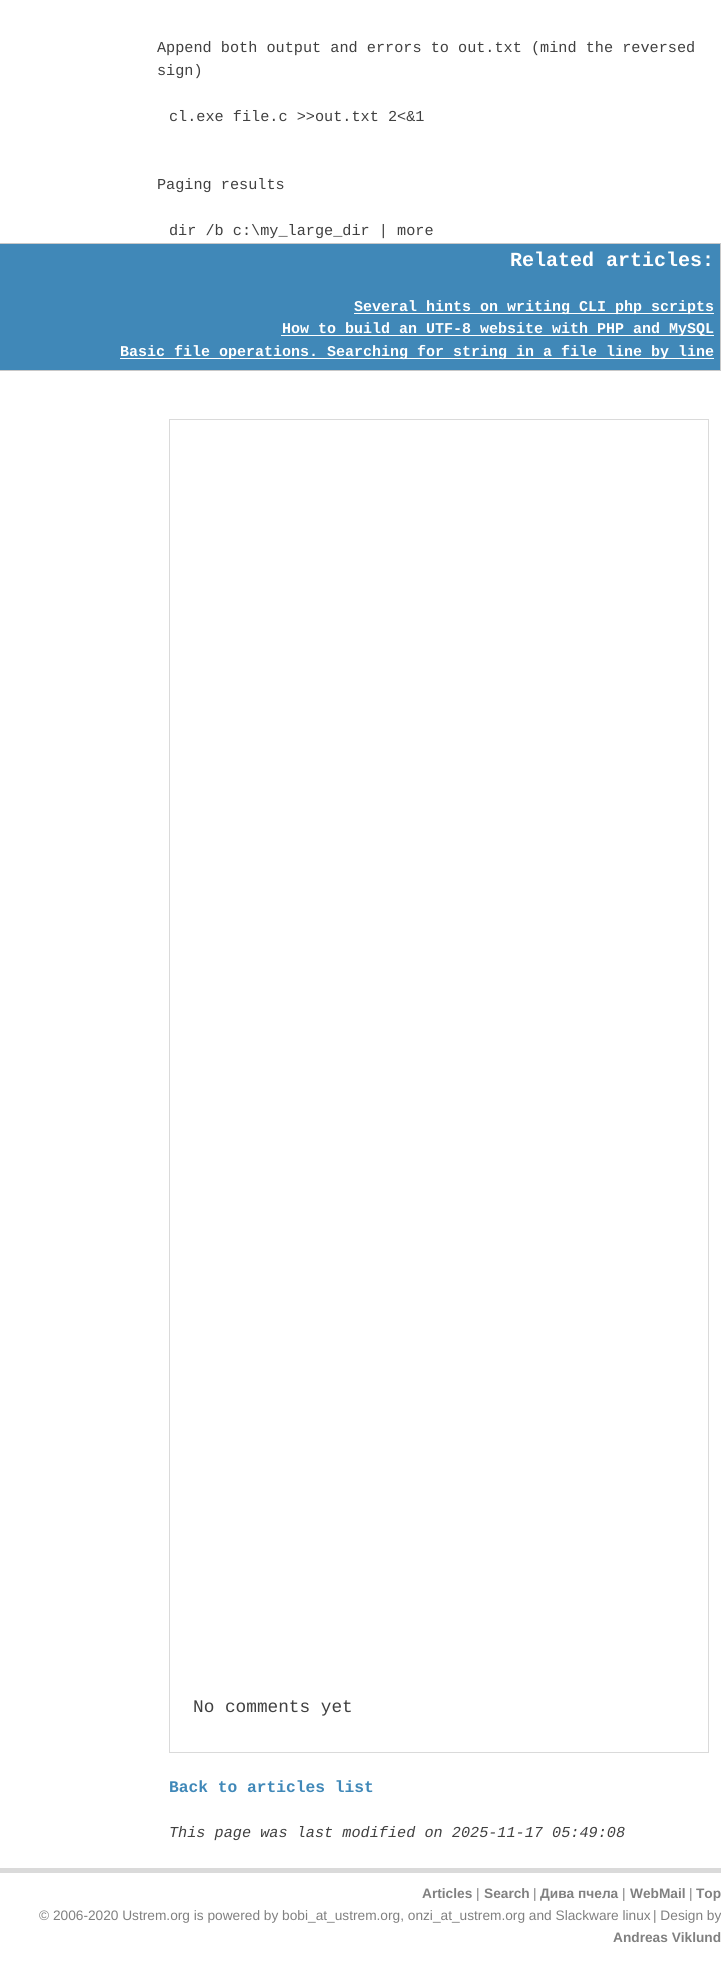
import math
import cairo

surface = cairo.ImageSurface(cairo.Format.RGB24, 721, 1971)
ctx = cairo.Context(surface)
options = cairo.FontOptions()
options.set_hint_metrics(cairo.HintMetrics.OFF)
options.set_hint_style(cairo.HintStyle.NONE)
ctx.set_font_options(options)
ctx.set_miter_limit(4)


def ink(r, g, b):
    ctx.set_source_rgb(r / 255, g / 255, b / 255)


def write(x, y, s, family, size, color, bold=False, italic=False):
    ctx.select_font_face(family, cairo.FontSlant.ITALIC if italic else cairo.FontSlant.NORMAL, cairo.FontWeight.BOLD if bold else cairo.FontWeight.NORMAL)
    ctx.set_font_size(size)
    ink(*color)
    ctx.move_to(x, y)
    ctx.show_text(s)


def block(x, y, w, h, *color):
    ink(*color)
    ctx.rectangle(x, y, w, h)
    ctx.fill()


s1 = dict(family="Liberation Mono", size=15.2, color=(64, 64, 64))
s2 = dict(family="Liberation Mono", size=20, color=(255, 255, 255), bold=True)
s3 = dict(family="Liberation Mono", size=15, color=(255, 255, 255), bold=True)
s4 = dict(family="Liberation Mono", size=17.75, color=(64, 64, 64))
s5 = dict(family="Liberation Mono", size=16.25, color=(64, 136, 184), bold=True)
s6 = dict(family="Liberation Mono", size=15.2, color=(64, 64, 64), italic=True)
s7 = dict(family="Liberation Sans", size=13.7, color=(128, 128, 128), bold=True)
s8 = dict(family="Liberation Sans", size=13.7, color=(128, 128, 128))

ink(255, 255, 255)
ctx.paint()
write(157, 52, "Append both output and errors to out.txt (mind the reversed", **s1)
write(157, 75, "sign)", **s1)
write(169, 121, "cl.exe file.c >>out.txt 2<&1", **s1)
write(157, 189, "Paging results", **s1)
write(169, 235, "dir /b c:\\my_large_dir | more", **s1)
ink(64, 136, 184)
ctx.rectangle(-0.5, 243.5, 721, 127)
ctx.fill_preserve()
ink(200, 200, 200)
ctx.set_line_width(1)
ctx.stroke()
write(510, 266, "Related articles:", **s2)
block(354, 313, 360, 1, 255, 255, 255)
write(354, 311, "Several hints on writing CLI php scripts", **s3)
block(281, 335, 433, 1, 255, 255, 255)
write(282, 333, "How to build an UTF-8 website with PHP and MySQL", **s3)
block(120, 358, 594, 1, 255, 255, 255)
write(120, 356, "Basic file operations. Searching for string in a file line by line", **s3)
ctx.rectangle(169.5, 419.5, 539, 1333)
ink(218, 218, 218)
ctx.stroke()
write(193, 1712, "No comments yet", **s4)
write(169, 1792, "Back to articles list", **s5)
write(169, 1837, "This page was last modified on 2025-11-17 05:49:08", **s6)
block(0, 1868, 721, 5, 218, 218, 218)
write(422, 1898, "Articles", **s7)
write(476, 1898, "|", **s8)
write(484, 1898, "Search", **s7)
write(533, 1898, "|", **s8)
write(540, 1898, "Дива пчела", **s7)
write(622, 1898, "|", **s8)
write(630, 1898, "WebMail", **s7)
write(689, 1898, "|", **s8)
write(696, 1898, "Top", **s7)
write(39, 1920, "© 2006-2020 Ustrem.org is powered by bobi_at_ustrem.org, onzi_at_ustrem.org and Slackware linux", **s8)
write(653, 1920, "| Design by", **s8)
write(613, 1942, "Andreas Viklund", **s7)
surface.write_to_png("screenshot.png")
